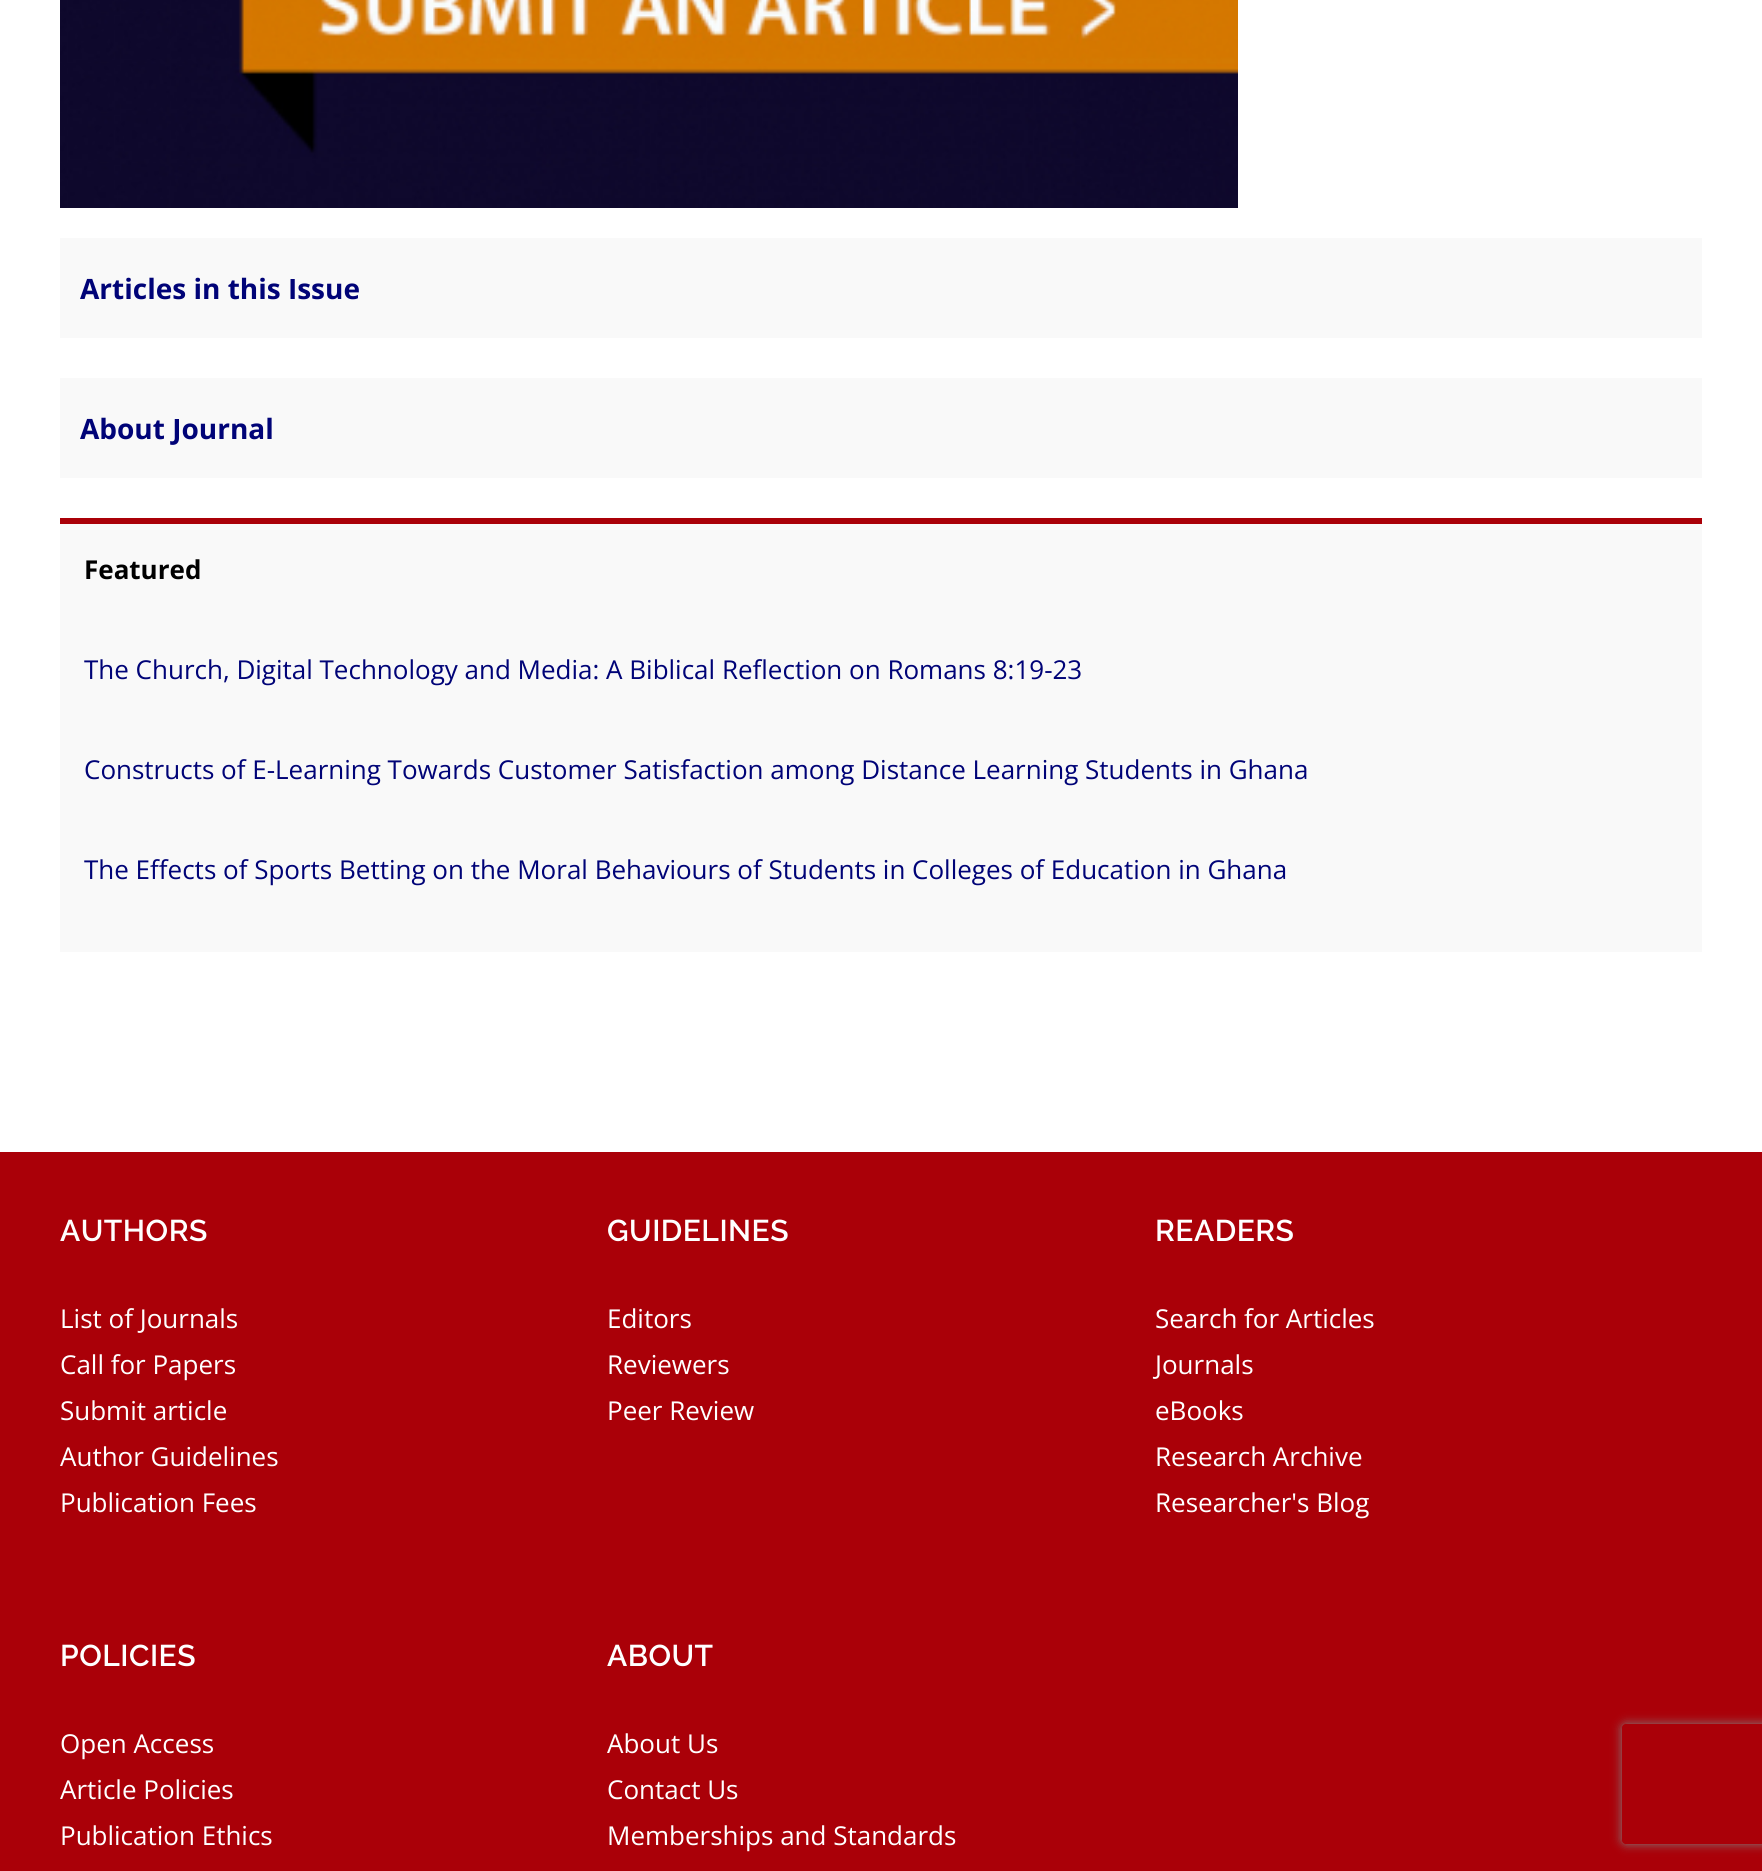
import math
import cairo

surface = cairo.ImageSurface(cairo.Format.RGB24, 1762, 1871)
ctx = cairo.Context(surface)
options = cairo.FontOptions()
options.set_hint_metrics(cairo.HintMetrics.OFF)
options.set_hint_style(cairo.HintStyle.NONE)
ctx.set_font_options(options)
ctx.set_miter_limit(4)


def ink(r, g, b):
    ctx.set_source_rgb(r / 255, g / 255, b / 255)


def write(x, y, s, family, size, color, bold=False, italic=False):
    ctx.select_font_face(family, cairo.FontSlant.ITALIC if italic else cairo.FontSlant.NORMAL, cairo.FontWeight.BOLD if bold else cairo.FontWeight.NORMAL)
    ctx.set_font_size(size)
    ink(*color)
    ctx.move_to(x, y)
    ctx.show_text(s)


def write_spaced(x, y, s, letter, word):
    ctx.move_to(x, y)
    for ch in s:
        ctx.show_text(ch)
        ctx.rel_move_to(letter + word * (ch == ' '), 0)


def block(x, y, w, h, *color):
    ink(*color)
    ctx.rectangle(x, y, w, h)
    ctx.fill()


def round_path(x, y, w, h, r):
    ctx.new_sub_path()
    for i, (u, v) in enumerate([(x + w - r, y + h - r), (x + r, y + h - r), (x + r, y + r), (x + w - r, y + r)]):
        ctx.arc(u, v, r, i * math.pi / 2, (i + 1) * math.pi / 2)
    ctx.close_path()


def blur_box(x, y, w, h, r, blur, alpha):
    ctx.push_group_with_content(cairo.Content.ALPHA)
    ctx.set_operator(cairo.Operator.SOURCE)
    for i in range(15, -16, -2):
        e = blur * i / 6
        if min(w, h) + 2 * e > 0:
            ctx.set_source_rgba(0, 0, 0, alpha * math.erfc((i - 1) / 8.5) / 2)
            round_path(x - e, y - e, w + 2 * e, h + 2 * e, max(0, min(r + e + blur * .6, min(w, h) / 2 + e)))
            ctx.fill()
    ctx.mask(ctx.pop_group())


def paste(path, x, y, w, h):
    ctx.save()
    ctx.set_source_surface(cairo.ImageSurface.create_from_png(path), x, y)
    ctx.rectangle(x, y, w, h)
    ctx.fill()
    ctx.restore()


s1 = dict(family="Open Sans", size=28, color=(0, 3, 119), bold=True)
s2 = dict(family="Open Sans", size=26, color=(0, 0, 0), bold=True)
s3 = dict(family="Open Sans", size=26, color=(0, 3, 119))
s4 = dict(family="Open Sans", size=26, color=(255, 255, 255))

ink(255, 255, 255)
ctx.paint()
paste("pic1.png", 60, 0, 1178, 208)
block(60, 238, 1642, 100, 249, 249, 249)
write(80, 299, "Articles in this Issue", **s1)
block(60, 378, 1642, 100, 249, 249, 249)
write(80, 439, "About Journal", **s1)
block(60, 524, 1642, 428, 249, 249, 249)
block(60, 518, 1642, 6, 170, 0, 8)
write(84, 579, "Featured", **s2)
write(84, 679, "The Church, Digital Technology and Media: A Biblical Reflection on Romans 8:19-23", **s3)
write(84, 779, "Constructs of E-Learning Towards Customer Satisfaction among Distance Learning Students in Ghana", **s3)
write(84, 879, "The Effects of Sports Betting on the Moral Behaviours of Students in Colleges of Education in Ghana", **s3)
block(0, 1152, 1762, 719, 170, 0, 8)
ctx.select_font_face("Raleway SemiBold")
ctx.set_font_size(30)
ink(255, 255, 255)
write_spaced(60, 1241, "AUTHORS", 0.5, 0)
write(60, 1328, "List of Journals", **s4)
write(60, 1374, "Call for Papers", **s4)
write(60, 1420, "Submit article", **s4)
write(60, 1466, "Author Guidelines", **s4)
write(60, 1512, "Publication Fees", **s4)
ctx.select_font_face("Raleway SemiBold")
ctx.set_font_size(30)
write_spaced(607, 1241, "GUIDELINES", 0.5, 0)
write(607, 1328, "Editors", **s4)
write(607, 1374, "Reviewers", **s4)
write(607, 1420, "Peer Review", **s4)
ctx.select_font_face("Raleway SemiBold")
ctx.set_font_size(30)
write_spaced(1155, 1241, "READERS", 0.5, 0)
write(1155, 1328, "Search for Articles", **s4)
write(1155, 1374, "Journals", **s4)
write(1155, 1420, "eBooks", **s4)
write(1155, 1466, "Research Archive", **s4)
write(1155, 1512, "Researcher's Blog", **s4)
ctx.select_font_face("Raleway SemiBold")
ctx.set_font_size(30)
write_spaced(60, 1666, "POLICIES", 0.5, 0)
write(60, 1753, "Open Access", **s4)
write(60, 1799, "Article Policies", **s4)
write(60, 1845, "Publication Ethics", **s4)
ctx.select_font_face("Raleway SemiBold")
ctx.set_font_size(30)
write_spaced(607, 1666, "ABOUT", 0.5, 0)
write(607, 1753, "About Us", **s4)
write(607, 1799, "Contact Us", **s4)
write(607, 1845, "Memberships and Standards", **s4)
ctx.save()
ctx.set_fill_rule(cairo.FillRule.EVEN_ODD)
ctx.new_path()
ctx.move_to(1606, 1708)
ctx.line_to(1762, 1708)
ctx.line_to(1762, 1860)
ctx.line_to(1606, 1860)
ctx.close_path()
ctx.move_to(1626, 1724)
ctx.line_to(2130, 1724)
ctx.curve_to(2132, 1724, 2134, 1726, 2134, 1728)
ctx.line_to(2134, 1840)
ctx.curve_to(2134, 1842, 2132, 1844, 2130, 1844)
ctx.line_to(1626, 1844)
ctx.curve_to(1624, 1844, 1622, 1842, 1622, 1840)
ctx.line_to(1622, 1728)
ctx.curve_to(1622, 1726, 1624, 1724, 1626, 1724)
ctx.close_path()
ctx.clip()
ink(128, 128, 128)
blur_box(1622, 1724, 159, 120, 4, 5, 1)
ctx.restore()
surface.write_to_png("screenshot.png")
